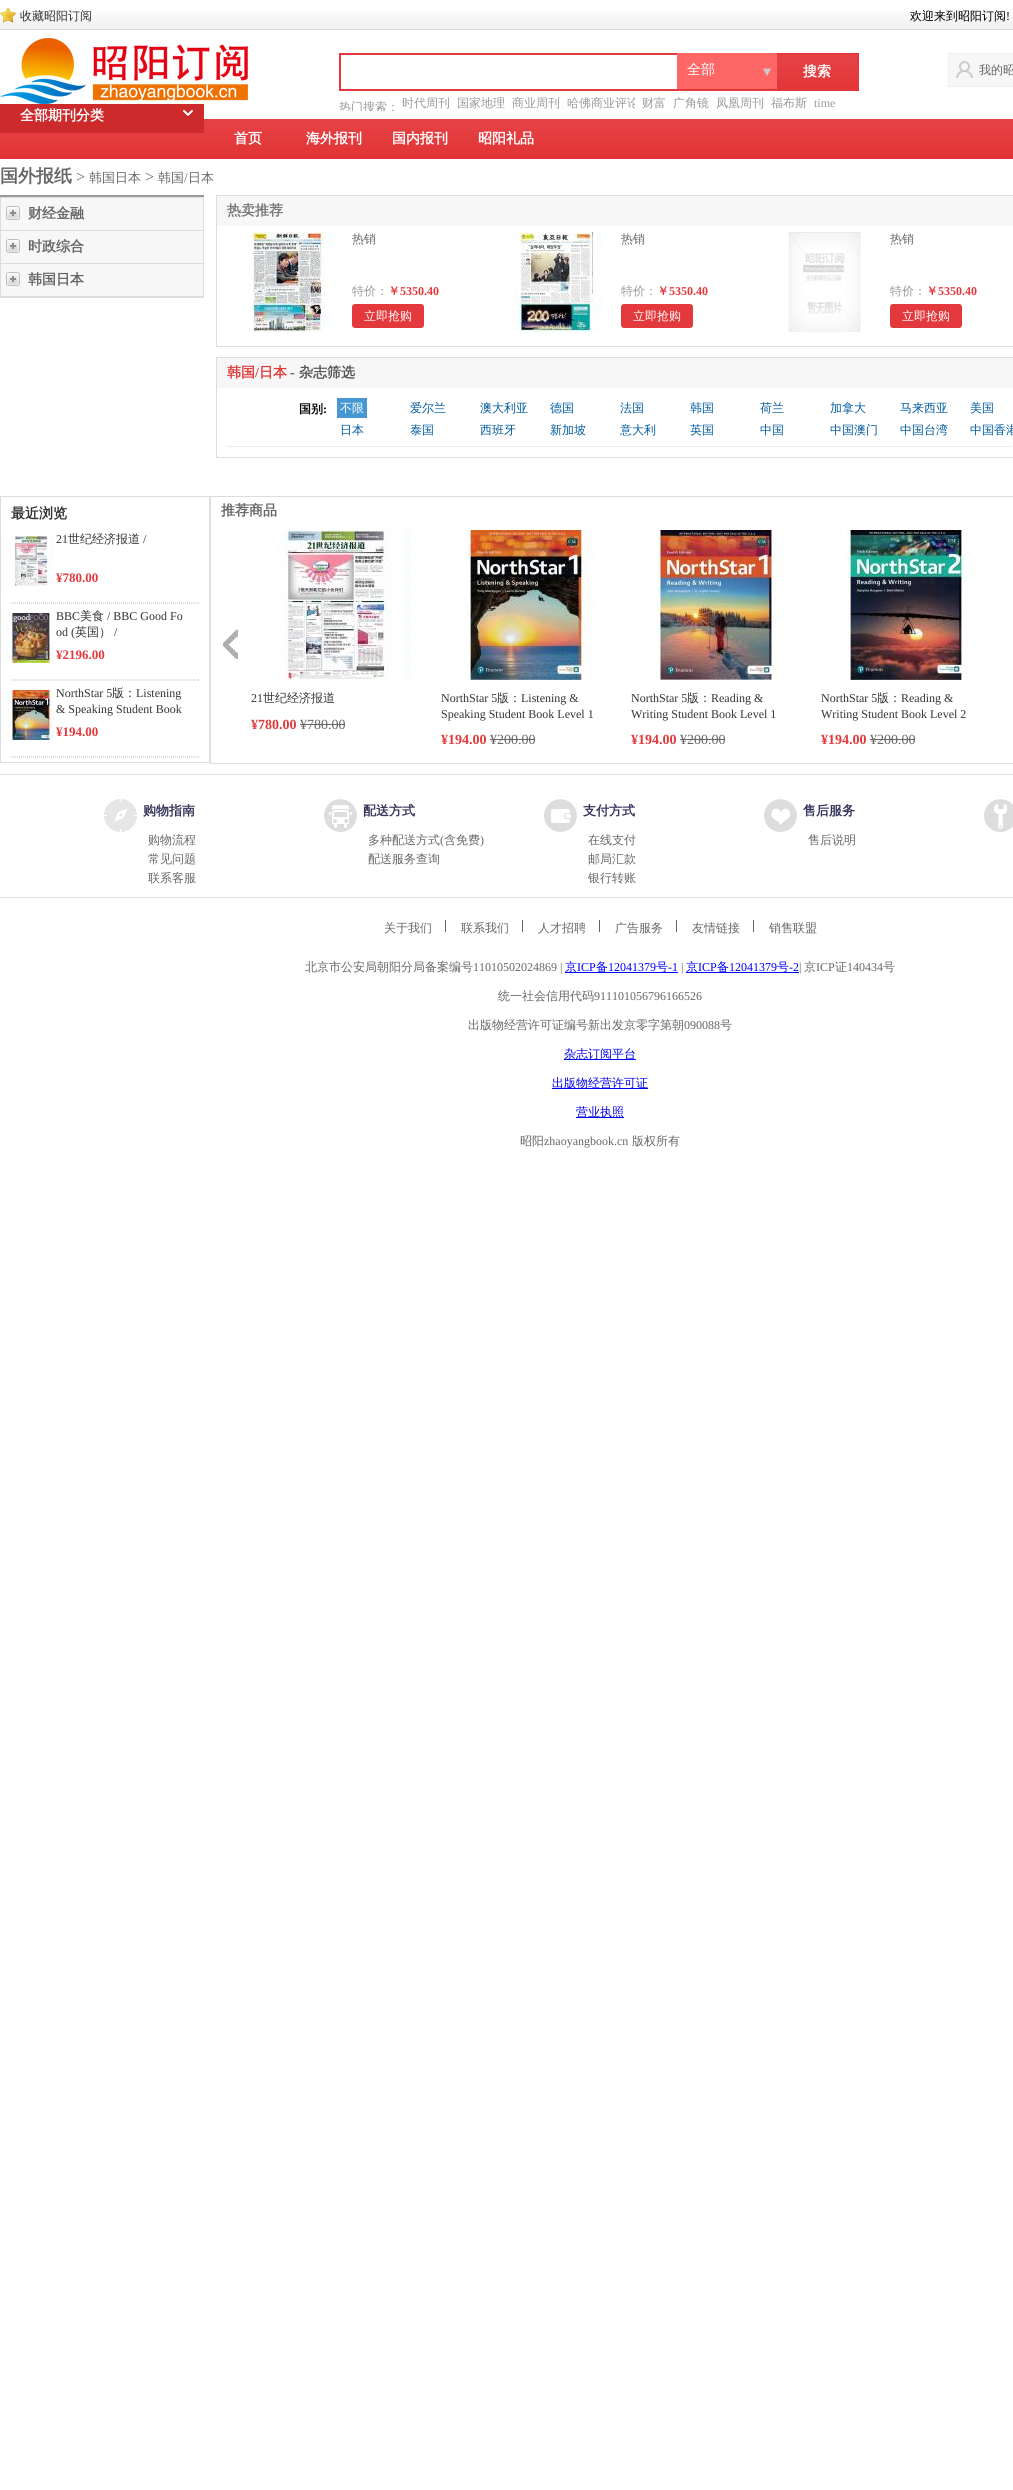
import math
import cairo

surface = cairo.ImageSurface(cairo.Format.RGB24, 1013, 2490)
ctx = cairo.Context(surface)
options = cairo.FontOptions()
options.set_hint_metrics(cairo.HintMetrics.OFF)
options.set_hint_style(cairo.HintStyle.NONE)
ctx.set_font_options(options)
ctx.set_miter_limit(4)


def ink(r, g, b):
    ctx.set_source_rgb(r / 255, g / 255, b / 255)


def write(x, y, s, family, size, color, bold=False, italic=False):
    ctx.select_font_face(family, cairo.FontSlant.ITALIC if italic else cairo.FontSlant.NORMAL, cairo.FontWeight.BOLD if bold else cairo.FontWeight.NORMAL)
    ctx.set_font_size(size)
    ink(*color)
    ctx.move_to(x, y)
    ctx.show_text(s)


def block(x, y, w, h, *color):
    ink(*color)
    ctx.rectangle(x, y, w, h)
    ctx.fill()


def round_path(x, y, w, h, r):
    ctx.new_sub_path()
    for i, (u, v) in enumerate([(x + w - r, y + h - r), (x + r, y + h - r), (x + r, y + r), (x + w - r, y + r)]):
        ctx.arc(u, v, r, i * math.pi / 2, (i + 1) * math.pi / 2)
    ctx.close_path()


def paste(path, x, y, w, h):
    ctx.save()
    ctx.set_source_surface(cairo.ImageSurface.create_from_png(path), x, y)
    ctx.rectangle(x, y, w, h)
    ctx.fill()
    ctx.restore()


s1 = dict(family="WenQuanYi Zen Hei Medium", size=12, color=(51, 51, 51))
s2 = dict(family="WenQuanYi Zen Hei Medium", size=12, color=(0, 0, 0))
s3 = dict(family="Liberation Serif", size=12, color=(0, 0, 0))
s4 = dict(family="WenQuanYi Zen Hei Medium", size=14, color=(255, 255, 255))
s5 = dict(family="WenQuanYi Zen Hei", size=14, color=(255, 255, 255), bold=True)
s6 = dict(family="WenQuanYi Zen Hei Medium", size=12, color=(153, 153, 153))
s7 = dict(family="Liberation Serif", size=12, color=(153, 153, 153))
s8 = dict(family="WenQuanYi Zen Hei Medium", size=12, color=(102, 102, 102))
s9 = dict(family="WenQuanYi Zen Hei", size=18, color=(102, 102, 102), bold=True)
s10 = dict(family="Liberation Serif", size=16, color=(102, 102, 102))
s11 = dict(family="WenQuanYi Zen Hei Medium", size=13, color=(102, 102, 102))
s12 = dict(family="Liberation Serif", size=13, color=(102, 102, 102))
s13 = dict(family="WenQuanYi Zen Hei", size=14, color=(102, 102, 102), bold=True)
s14 = dict(family="WenQuanYi Zen Hei", size=14, color=(119, 119, 119), bold=True)
s15 = dict(family="WenQuanYi Zen Hei", size=12, color=(228, 57, 60), bold=True)
s16 = dict(family="Liberation Serif", size=12, color=(228, 57, 60), bold=True)
s17 = dict(family="WenQuanYi Zen Hei Medium", size=12, color=(255, 255, 255))
s18 = dict(family="WenQuanYi Zen Hei", size=14, color=(228, 57, 60), bold=True)
s19 = dict(family="Liberation Serif", size=14, color=(228, 57, 60), bold=True)
s20 = dict(family="Liberation Serif", size=14, color=(85, 85, 85), bold=True)
s21 = dict(family="WenQuanYi Zen Hei", size=14, color=(85, 85, 85), bold=True)
s22 = dict(family="WenQuanYi Zen Hei", size=12, color=(0, 0, 0), bold=True)
s23 = dict(family="Liberation Serif", size=12, color=(0, 0, 0), bold=True)
s24 = dict(family="WenQuanYi Zen Hei Medium", size=12, color=(0, 90, 160))
s25 = dict(family="WenQuanYi Zen Hei", size=14, color=(51, 51, 51), bold=True)
s26 = dict(family="Liberation Serif", size=12, color=(51, 51, 51))
s27 = dict(family="Liberation Serif", size=13, color=(228, 57, 60), bold=True)
s28 = dict(family="Liberation Serif", size=14, color=(102, 102, 102))
s29 = dict(family="WenQuanYi Zen Hei", size=13, color=(51, 51, 90), bold=True)
s30 = dict(family="Liberation Serif", size=12, color=(102, 102, 102))
s31 = dict(family="WenQuanYi Zen Hei Medium", size=12, color=(0, 0, 255))
s32 = dict(family="Liberation Serif", size=12, color=(0, 0, 255))
s33 = dict(family="WenQuanYi Zen Hei Medium", size=12, color=(0, 0, 238))

ink(255, 255, 255)
ctx.paint()
paste("pic1.png", 0, 11, 1013, 19)
paste("pic2.png", 0, 7, 16, 16)
write(20, 20, "收藏昭阳订阅", **s1)
write(910, 20, "欢迎来到昭阳订阅", **s2)
write(1006, 20, "!", **s3)
paste("pic3.png", 0, 38, 248, 66)
ctx.rectangle(340, 54, 518, 36)
ink(228, 57, 60)
ctx.stroke()
block(677, 53, 100, 36, 255, 102, 102)
write(687, 74, "全部", **s4)
paste("pic4.png", 763, 68, 8, 8)
paste("pic5.png", 777, 55, 80, 34)
write(803, 76, "搜索", **s5)
ctx.save()
ctx.rectangle(339, 95, 520, 16)
ctx.clip()
write(339, 111, "热门搜索：", **s6)
ctx.restore()
write(402, 107, "时代周刊", **s6)
write(457, 107, "国家地理", **s6)
write(512, 107, "商业周刊", **s6)
ctx.save()
ctx.rectangle(567, 95, 68, 16)
ctx.clip()
write(567, 107, "哈佛商业评论", **s6)
ctx.restore()
write(642, 107, "财富", **s6)
write(673, 107, "广角镜", **s6)
write(716, 107, "凤凰周刊", **s6)
write(771, 107, "福布斯", **s6)
write(814, 107, "time", **s7)
ink(247, 247, 247)
ctx.rectangle(948.5, 53.5, 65, 33)
ctx.fill_preserve()
ink(239, 239, 239)
ctx.set_line_width(1)
ctx.stroke()
paste("pic6.png", 956, 61, 17, 17)
write(979, 74, "我的昭", **s8)
paste("pic7.png", 0, 119, 1013, 40)
block(0, 104, 204, 29, 205, 42, 44)
write(20, 120, "全部期刊分类", **s5)
paste("pic8.png", 183, 110, 10, 7)
write(234, 143, "首页", **s5)
write(306, 143, "海外报刊", **s5)
write(392, 143, "国内报刊", **s5)
write(478, 143, "昭阳礼品", **s5)
write(0, 182, "国外报纸", **s9)
write(76, 182, ">", **s10)
write(89, 182, "韩国日本", **s11)
write(145, 182, ">", **s10)
write(158, 182, "韩国 日本", **s11)
write(184, 182, "/", **s12)
block(0, 195, 204, 2, 153, 153, 153)
ctx.rectangle(0.5, 197.5, 203, 100)
ink(221, 221, 221)
ctx.stroke()
block(1, 198, 202, 32, 247, 247, 247)
block(1, 230, 202, 1, 221, 221, 221)
paste("pic9.png", 6, 206, 14, 14)
write(28, 218, "财经金融", **s13)
block(1, 231, 202, 32, 247, 247, 247)
block(1, 263, 202, 1, 221, 221, 221)
paste("pic9.png", 6, 239, 14, 14)
write(28, 251, "时政综合", **s13)
block(1, 264, 202, 32, 247, 247, 247)
block(1, 296, 202, 1, 221, 221, 221)
paste("pic9.png", 6, 272, 14, 14)
write(28, 284, "韩国日本", **s13)
ctx.rectangle(216.5, 195.5, 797, 151)
ink(221, 221, 221)
ctx.stroke()
block(217, 196, 796, 30, 247, 247, 247)
write(227, 215, "热卖推荐", **s14)
paste("pic10.png", 252, 232, 82, 100)
write(352, 243, "热销", **s8)
write(352, 295, "特价：", **s6)
write(388, 295, "￥", **s15)
write(400, 295, "5350.40", **s16)
round_path(352, 304, 72, 24, 3)
ctx.fill()
write(364, 320, "立即抢购", **s17)
paste("pic11.png", 510, 232, 92, 100)
write(621, 243, "热销", **s8)
write(621, 295, "特价：", **s6)
write(657, 295, "￥", **s15)
write(669, 295, "5350.40", **s16)
round_path(621, 304, 72, 24, 3)
ctx.fill()
write(633, 320, "立即抢购", **s17)
paste("pic12.png", 788, 232, 73, 100)
write(890, 243, "热销", **s8)
write(890, 295, "特价：", **s6)
write(926, 295, "￥", **s15)
write(938, 295, "5350.40", **s16)
round_path(890, 304, 72, 24, 3)
ctx.fill()
write(902, 320, "立即抢购", **s17)
ctx.rectangle(216.5, 357.5, 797, 100)
ink(221, 221, 221)
ctx.stroke()
block(217, 358, 796, 30, 247, 247, 247)
write(227, 377, "韩国", **s18)
write(255, 377, "/", **s19)
write(259, 377, "日本", **s18)
write(290, 377, "-", **s20)
write(299, 377, "杂志筛选", **s21)
ctx.new_path()
ctx.move_to(227, 446.5)
ctx.line_to(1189, 446.5)
ink(221, 221, 221)
ctx.set_dash([1, 1])
ctx.stroke()
write(299, 413, "国别", **s22)
write(323, 413, ":", **s23)
block(337, 398, 30, 20, 69, 152, 210)
write(340, 412, "不限", **s17)
write(410, 412, "爱尔兰", **s24)
write(480, 412, "澳大利亚", **s24)
write(550, 412, "德国", **s24)
write(620, 412, "法国", **s24)
write(690, 412, "韩国", **s24)
write(760, 412, "荷兰", **s24)
write(830, 412, "加拿大", **s24)
write(900, 412, "马来西亚", **s24)
write(970, 412, "美国", **s24)
write(340, 434, "日本", **s24)
write(410, 434, "泰国", **s24)
write(480, 434, "西班牙", **s24)
write(550, 434, "新加坡", **s24)
write(620, 434, "意大利", **s24)
write(690, 434, "英国", **s24)
write(760, 434, "中国", **s24)
write(830, 434, "中国澳门", **s24)
write(900, 434, "中国台湾", **s24)
write(970, 434, "中国香港", **s24)
ctx.rectangle(0.5, 496.5, 209, 266)
ink(221, 221, 221)
ctx.set_dash([])
ctx.stroke()
write(11, 518, "最近浏览", **s25)
paste("pic13.png", 6, 536, 48, 50)
write(56, 543, "21", **s26)
write(68, 543, "世纪经济报道", **s1)
write(143, 543, "/", **s26)
write(56, 582, "¥780.00", **s27)
ctx.new_path()
ctx.move_to(11, 602.5)
ctx.line_to(199, 602.5)
ink(222, 222, 222)
ctx.set_dash([1, 1])
ctx.stroke()
block(198, 602, 1, 2, 222, 222, 222)
ctx.new_path()
ctx.move_to(11, 603.5)
ctx.line_to(199, 603.5)
ctx.stroke()
paste("pic14.png", 6, 613, 48, 50)
write(56, 620, "BBC", **s26)
write(80, 620, "美食", **s1)
write(107, 620, "/ BBC Good Fo", **s26)
write(56, 636, "od (", **s26)
write(75, 636, "英国）", **s1)
write(114, 636, "/", **s26)
write(56, 659, "¥2196.00", **s27)
ctx.new_path()
ctx.move_to(11, 679.5)
ctx.line_to(199, 679.5)
ink(222, 222, 222)
ctx.stroke()
block(198, 679, 1, 2, 222, 222, 222)
ctx.new_path()
ctx.move_to(11, 680.5)
ctx.line_to(199, 680.5)
ctx.stroke()
paste("pic15.png", 6, 690, 49, 50)
write(56, 697, "NorthStar 5", **s26)
write(112, 697, "版：", **s1)
write(136, 697, "Listening", **s26)
write(56, 713, "& Speaking Student Book", **s26)
write(56, 736, "¥194.00", **s27)
ctx.new_path()
ctx.move_to(11, 756.5)
ctx.line_to(199, 756.5)
ink(222, 222, 222)
ctx.stroke()
block(198, 756, 1, 2, 222, 222, 222)
ctx.new_path()
ctx.move_to(11, 757.5)
ctx.line_to(199, 757.5)
ctx.stroke()
ctx.rectangle(210.5, 496.5, 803, 267)
ink(221, 221, 221)
ctx.set_dash([])
ctx.stroke()
write(221, 515, "推荐商品", **s13)
paste("pic16.png", 223, 629, 15, 30)
paste("pic17.png", 277, 530, 134, 150)
write(251, 702, "21", **s26)
write(263, 702, "世纪经济报道", **s1)
write(251, 729, "¥780.00", **s19)
write(300, 729, "¥780.00", **s28)
block(300, 724, 45, 1, 102, 102, 102)
paste("pic18.png", 466, 530, 129, 150)
write(441, 702, "NorthStar 5", **s26)
write(497, 702, "版：", **s1)
write(521, 702, "Listening &", **s26)
write(441, 718, "Speaking Student Book Level 1", **s26)
write(441, 744, "¥194.00", **s19)
write(490, 744, "¥200.00", **s28)
block(490, 739, 45, 1, 102, 102, 102)
paste("pic19.png", 657, 530, 128, 150)
write(631, 702, "NorthStar 5", **s26)
write(687, 702, "版：", **s1)
write(711, 702, "Reading &", **s26)
write(631, 718, "Writing Student Book Level 1", **s26)
write(631, 744, "¥194.00", **s19)
write(680, 744, "¥200.00", **s28)
block(680, 739, 45, 1, 102, 102, 102)
paste("pic20.png", 847, 530, 128, 150)
write(821, 702, "NorthStar 5", **s26)
write(877, 702, "版：", **s1)
write(901, 702, "Reading &", **s26)
write(821, 718, "Writing Student Book Level 2", **s26)
write(821, 744, "¥194.00", **s19)
write(870, 744, "¥200.00", **s28)
block(870, 739, 45, 1, 102, 102, 102)
block(0, 774, 1013, 1, 221, 221, 221)
paste("pic21.png", 104, 799, 33, 33)
write(143, 815, "购物指南", **s29)
write(148, 844, "购物流程", **s8)
write(148, 863, "常见问题", **s8)
write(148, 882, "联系客服", **s8)
paste("pic22.png", 324, 799, 33, 33)
write(363, 815, "配送方式", **s29)
write(368, 844, "多种配送方式", **s8)
write(440, 844, "(", **s30)
write(444, 844, "含免费", **s8)
write(480, 844, ")", **s30)
write(368, 863, "配送服务查询", **s8)
paste("pic23.png", 544, 799, 33, 33)
write(583, 815, "支付方式", **s29)
write(588, 844, "在线支付", **s8)
write(588, 863, "邮局汇款", **s8)
write(588, 882, "银行转账", **s8)
paste("pic24.png", 764, 799, 33, 33)
write(803, 815, "售后服务", **s29)
write(808, 844, "售后说明", **s8)
paste("pic25.png", 984, 799, 29, 33)
block(0, 897, 1013, 1, 221, 221, 221)
write(384, 932, "关于我们", **s8)
block(445, 920, 1, 12, 102, 102, 102)
write(461, 932, "联系我们", **s8)
block(522, 920, 1, 12, 102, 102, 102)
write(538, 932, "人才招聘", **s8)
block(599, 920, 1, 12, 102, 102, 102)
write(615, 932, "广告服务", **s8)
block(676, 920, 1, 12, 102, 102, 102)
write(692, 932, "友情链接", **s8)
block(753, 920, 1, 12, 102, 102, 102)
write(769, 932, "销售联盟", **s8)
write(305, 971, "北京市公安局朝阳分局备案编号", **s8)
write(473, 971, "11010502024869 |", **s30)
block(565, 972, 113, 1, 0, 0, 255)
write(565, 971, "京", **s31)
write(577, 971, "ICP", **s32)
write(596, 971, "备", **s31)
write(608, 971, "12041379", **s32)
write(656, 971, "号", **s31)
write(668, 971, "-1", **s32)
write(681, 971, "|", **s30)
block(686, 972, 113, 1, 0, 0, 255)
write(686, 971, "京", **s31)
write(698, 971, "ICP", **s32)
write(717, 971, "备", **s31)
write(729, 971, "12041379", **s32)
write(777, 971, "号", **s31)
write(789, 971, "-2", **s32)
write(799, 971, "|", **s30)
write(804, 971, "京", **s8)
write(816, 971, "ICP", **s30)
write(835, 971, "证", **s8)
write(847, 971, "140434", **s30)
write(883, 971, "号", **s8)
write(498, 1000, "统一社会信用代码", **s8)
write(594, 1000, "911101056796166526", **s30)
write(468, 1029, "出版物经营许可证编号新出发京零字第朝", **s8)
write(684, 1029, "090088", **s30)
write(720, 1029, "号", **s8)
block(564, 1059, 72, 1, 0, 0, 238)
write(564, 1058, "杂志订阅平台", **s33)
block(552, 1088, 96, 1, 0, 0, 238)
write(552, 1087, "出版物经营许可证", **s33)
block(576, 1117, 48, 1, 0, 0, 238)
write(576, 1116, "营业执照", **s33)
write(520, 1145, "昭阳", **s8)
write(544, 1145, "zhaoyangbook.cn", **s30)
write(632, 1145, "版权所有", **s8)
surface.write_to_png("screenshot.png")
